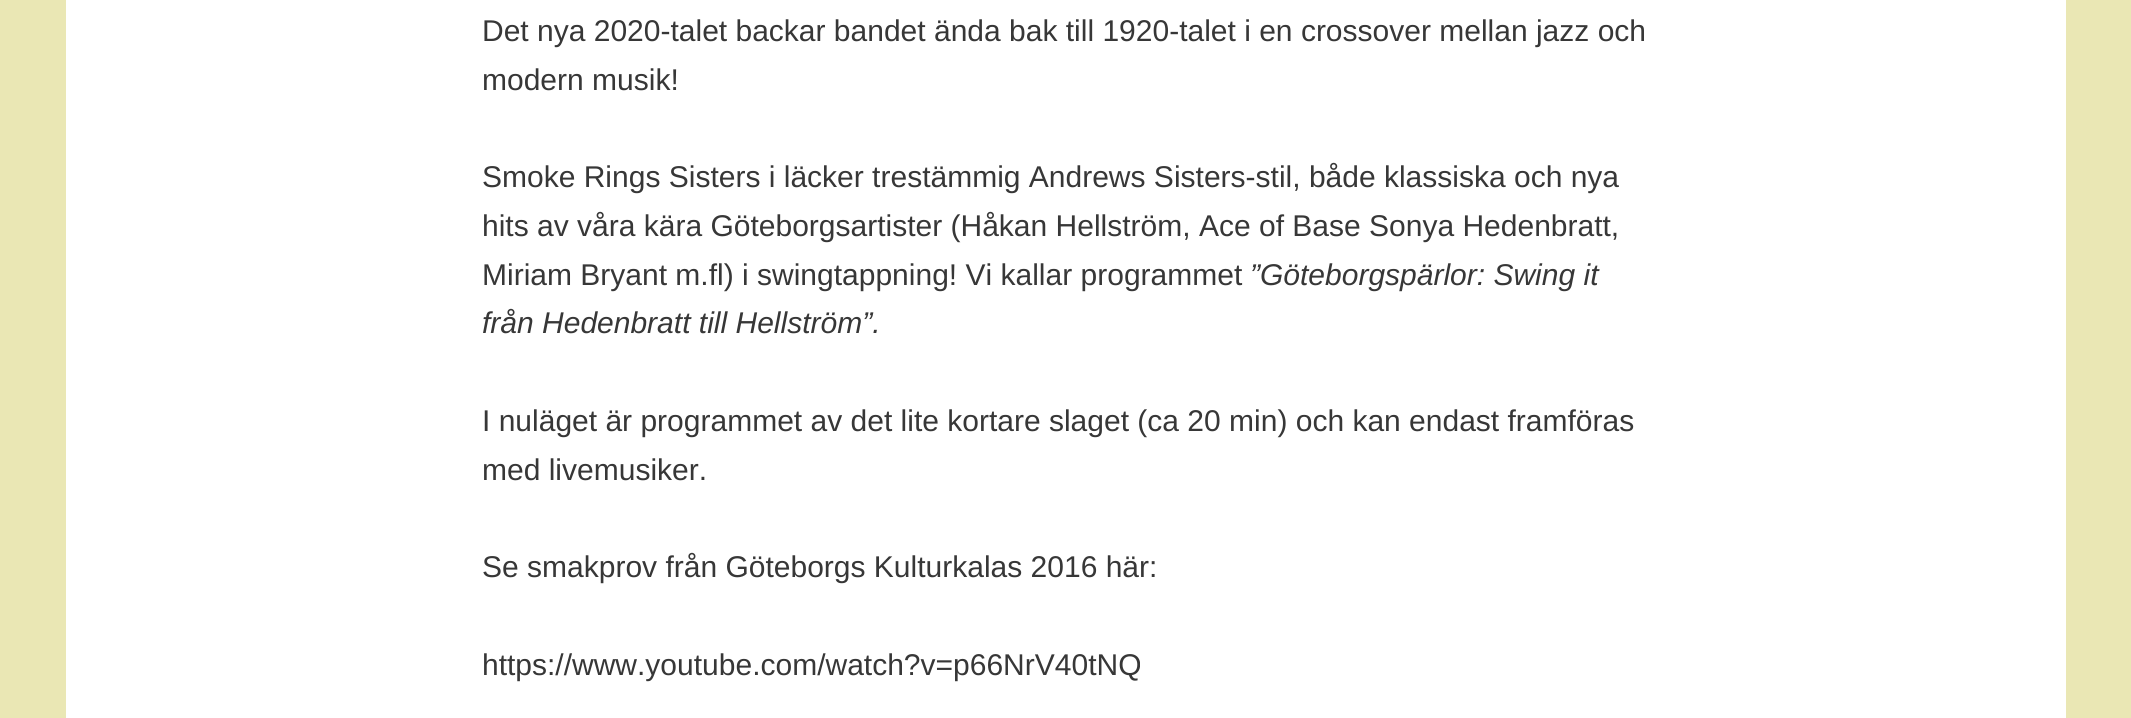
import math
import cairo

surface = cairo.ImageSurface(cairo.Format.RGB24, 2131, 718)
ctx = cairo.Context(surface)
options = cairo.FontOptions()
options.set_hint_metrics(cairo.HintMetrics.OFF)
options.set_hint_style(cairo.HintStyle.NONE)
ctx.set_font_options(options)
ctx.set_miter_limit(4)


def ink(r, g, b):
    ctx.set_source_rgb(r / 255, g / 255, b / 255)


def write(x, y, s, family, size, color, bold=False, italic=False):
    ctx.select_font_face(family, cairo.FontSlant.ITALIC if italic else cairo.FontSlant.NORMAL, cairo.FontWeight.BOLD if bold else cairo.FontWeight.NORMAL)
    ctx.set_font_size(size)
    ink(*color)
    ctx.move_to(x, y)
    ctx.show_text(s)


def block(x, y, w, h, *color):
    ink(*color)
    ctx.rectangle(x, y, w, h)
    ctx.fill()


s1 = dict(family="Liberation Sans", size=30, color=(55, 55, 55))
s2 = dict(family="Liberation Sans", size=30, color=(55, 55, 55), italic=True)

ink(234, 231, 180)
ctx.paint()
block(66, 0, 2000, 718, 255, 255, 255)
write(482, 41, "Det nya 2020-talet backar bandet ända bak till 1920-talet i en crossover mellan jazz och", **s1)
write(482, 90, "modern musik!", **s1)
write(482, 187, "Smoke Rings Sisters i läcker trestämmig Andrews Sisters-stil, både klassiska och nya", **s1)
write(482, 236, "hits av våra kära Göteborgsartister (Håkan Hellström, Ace of Base Sonya Hedenbratt,", **s1)
write(482, 285, "Miriam Bryant m.fl) i swingtappning! Vi kallar programmet", **s1)
write(1250, 285, "”Göteborgspärlor: Swing it", **s2)
write(482, 333, "från Hedenbratt till Hellström”.", **s2)
write(482, 431, "I nuläget är programmet av det lite kortare slaget (ca 20 min) och kan endast framföras", **s1)
write(482, 480, "med livemusiker.", **s1)
write(482, 577, "Se smakprov från Göteborgs Kulturkalas 2016 här:", **s1)
write(482, 675, "https://www.youtube.com/watch?v=p66NrV40tNQ", **s1)
surface.write_to_png("screenshot.png")
